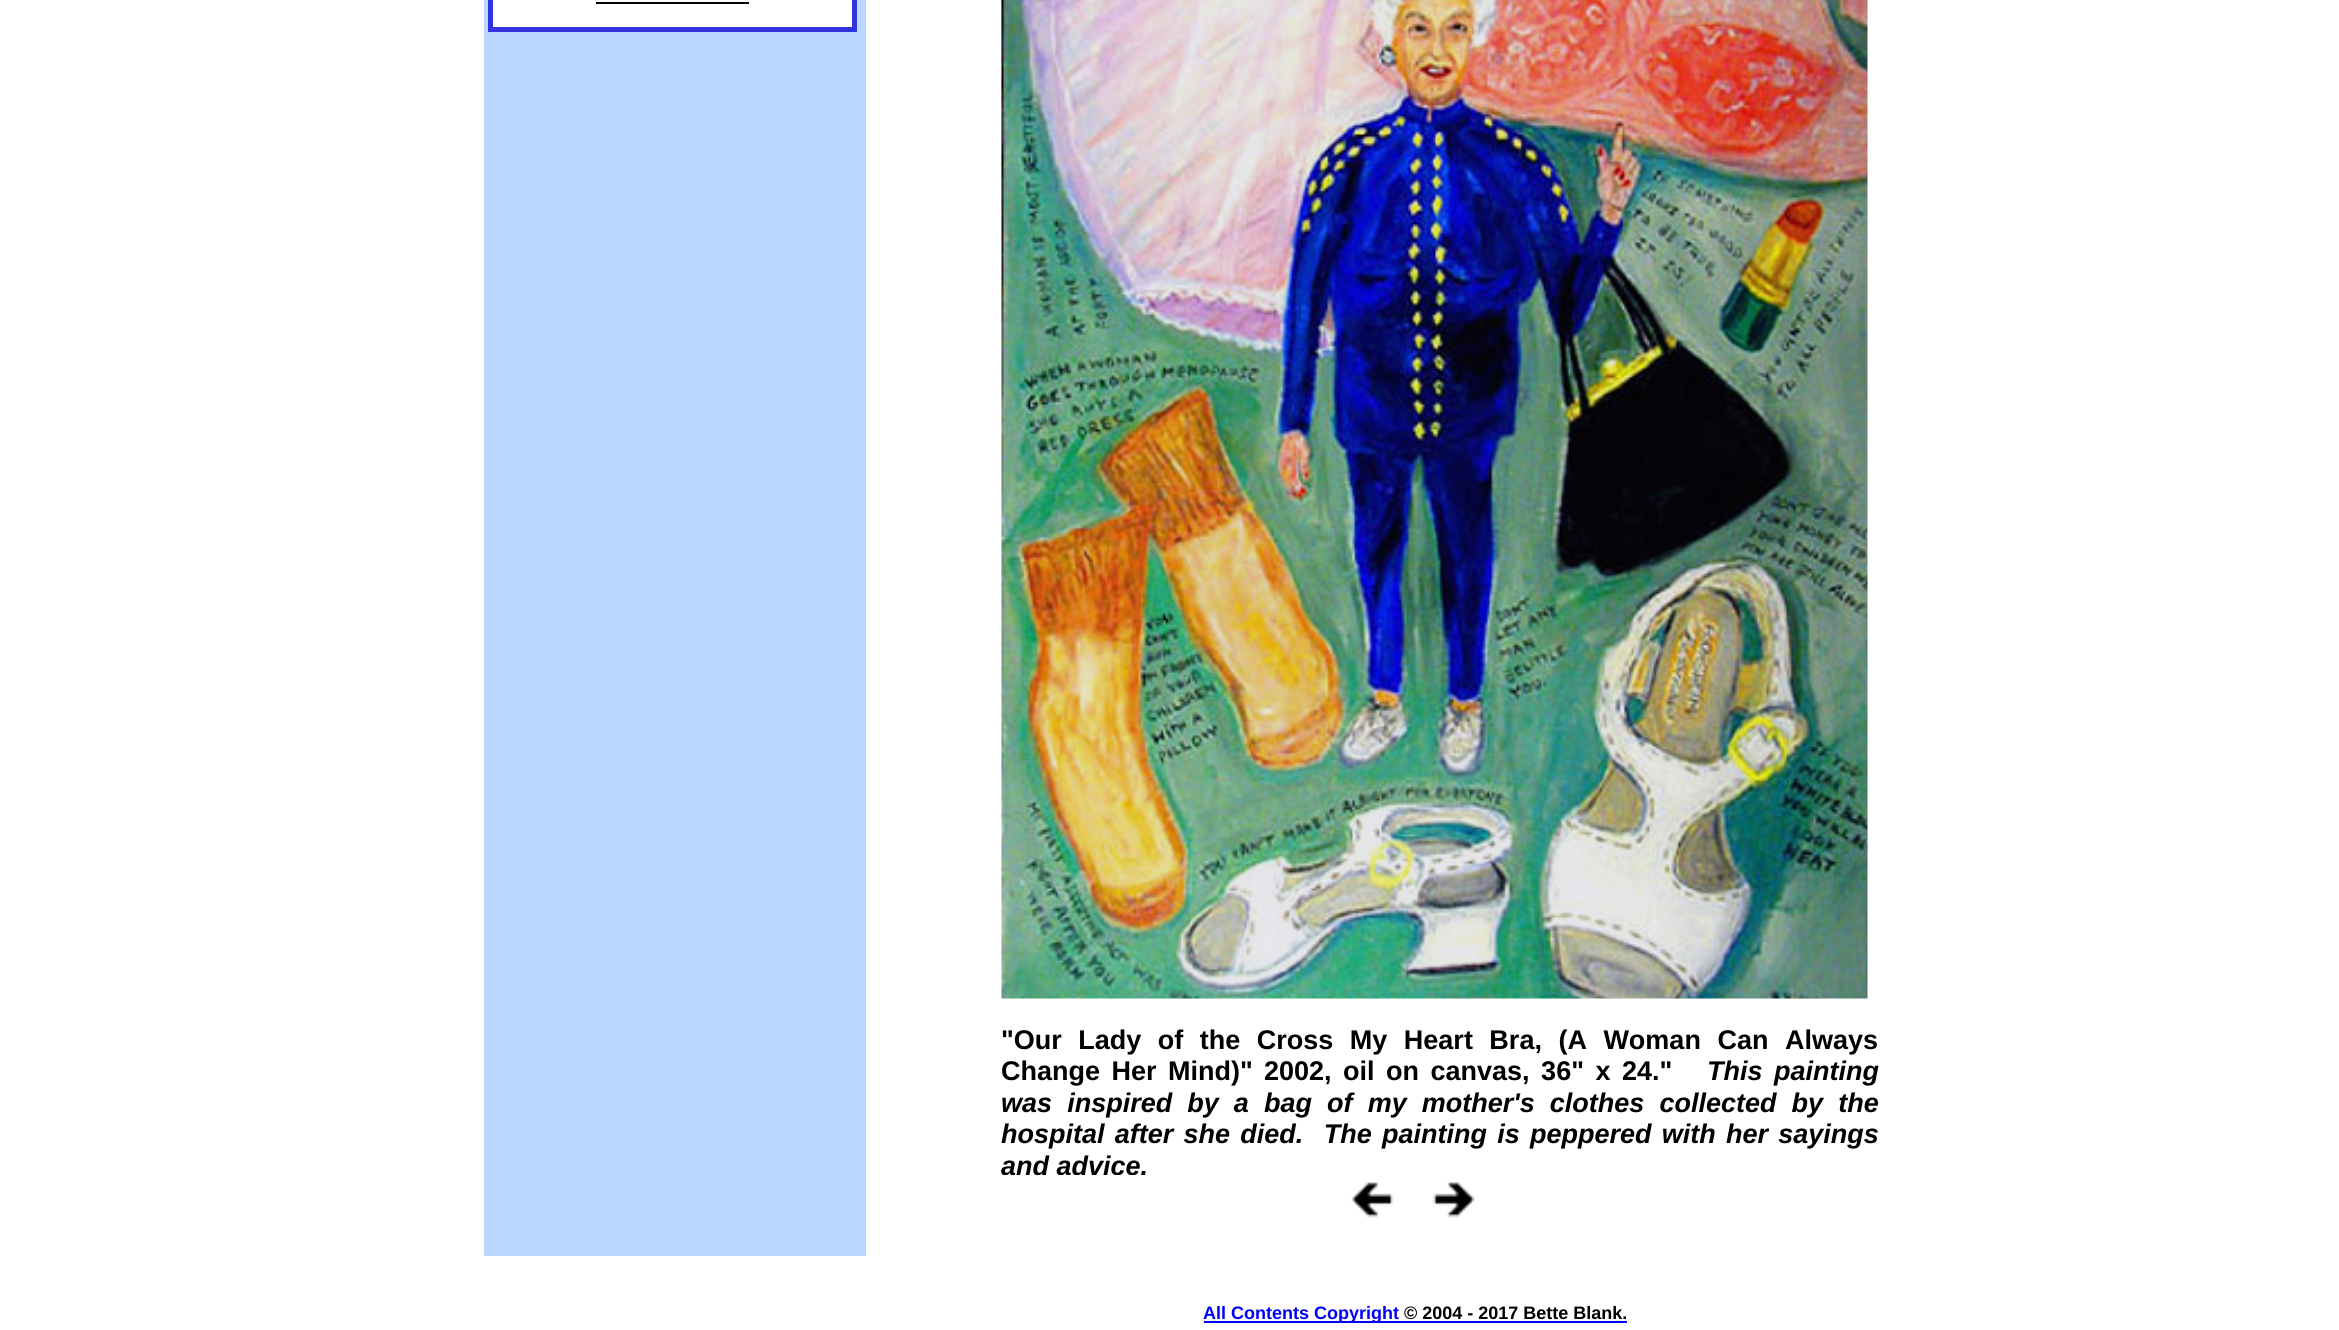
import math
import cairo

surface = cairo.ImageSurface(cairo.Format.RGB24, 2339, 1330)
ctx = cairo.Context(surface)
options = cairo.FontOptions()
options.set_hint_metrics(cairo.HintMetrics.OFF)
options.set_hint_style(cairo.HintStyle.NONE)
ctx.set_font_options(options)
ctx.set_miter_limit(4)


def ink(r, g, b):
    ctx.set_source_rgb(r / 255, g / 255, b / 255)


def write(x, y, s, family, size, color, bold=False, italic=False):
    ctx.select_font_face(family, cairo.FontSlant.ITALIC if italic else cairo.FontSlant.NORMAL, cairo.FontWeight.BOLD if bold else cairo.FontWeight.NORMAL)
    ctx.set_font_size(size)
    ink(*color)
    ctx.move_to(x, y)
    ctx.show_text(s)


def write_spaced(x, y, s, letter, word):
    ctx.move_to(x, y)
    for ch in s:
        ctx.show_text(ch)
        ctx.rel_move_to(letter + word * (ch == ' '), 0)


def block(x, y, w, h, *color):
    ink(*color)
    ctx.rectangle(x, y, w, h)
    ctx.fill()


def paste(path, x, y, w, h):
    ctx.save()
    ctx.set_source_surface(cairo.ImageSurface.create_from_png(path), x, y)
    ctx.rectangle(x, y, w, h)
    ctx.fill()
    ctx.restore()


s1 = dict(family="Liberation Sans", size=27, color=(0, 0, 0), bold=True, italic=True)
s2 = dict(family="Liberation Sans", size=18, color=(0, 0, 255), bold=True)
s3 = dict(family="Liberation Sans", size=18, color=(0, 0, 0), bold=True)

ink(255, 255, 255)
ctx.paint()
block(484, 0, 382, 1256, 184, 216, 255)
ink(255, 255, 255)
ctx.rectangle(490.5, -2.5, 364, 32)
ctx.fill_preserve()
ink(51, 51, 221)
ctx.set_line_width(5)
ctx.stroke()
block(596, 2, 153, 2, 0, 0, 0)
paste("pic1.png", 1001, 0, 867, 999)
ctx.select_font_face("Liberation Sans", cairo.FontSlant.NORMAL, cairo.FontWeight.BOLD)
ctx.set_font_size(27)
write_spaced(1001, 1049, "\"Our Lady of the Cross My Heart Bra, (A Woman Can Always", 0, 9)
write_spaced(1001, 1080, "Change Her Mind)\"", 0, 4)
write_spaced(1264, 1080, "2002, oil on canvas, 36\" x 24.\"", 0, 4)
ctx.select_font_face("Liberation Sans", cairo.FontSlant.ITALIC, cairo.FontWeight.BOLD)
write_spaced(1707, 1080, "This painting", 0, 4)
write_spaced(1001, 1112, "was inspired by a bag of my mother's clothes collected by the", 0, 7.6)
write_spaced(1001, 1143, "hospital after she died.  The painting is peppered with her sayings", 0, 2.75)
ctx.save()
ctx.rectangle(1001, 1024, 878, 151)
ctx.clip()
write(1001, 1175, "and advice.", **s1)
ctx.restore()
paste("pic2.png", 1351, 1182, 43, 36)
paste("pic3.png", 1432, 1182, 43, 36)
block(1204, 1321, 423, 2, 0, 0, 255)
write(1203, 1319, "All Contents Copyright", **s2)
write(1404, 1319, "© 2004 - 2017 Bette Blank.", **s3)
surface.write_to_png("screenshot.png")
